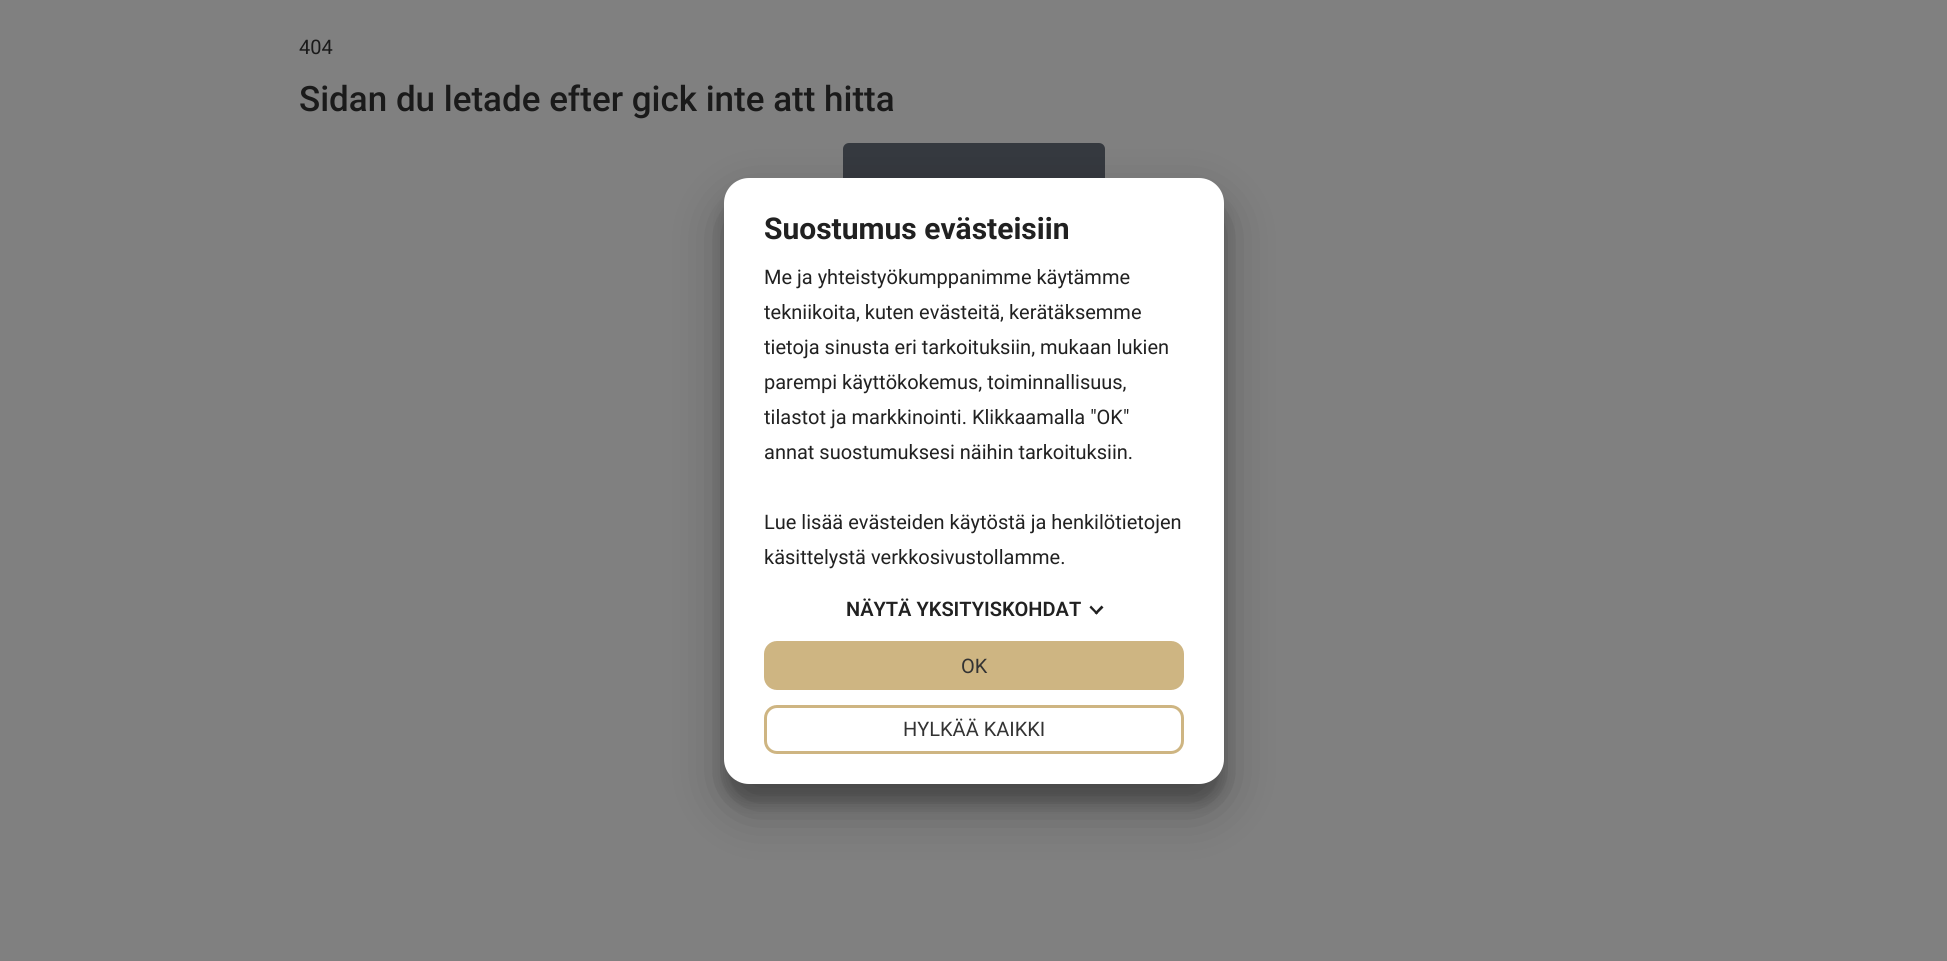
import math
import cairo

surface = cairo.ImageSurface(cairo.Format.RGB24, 1947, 961)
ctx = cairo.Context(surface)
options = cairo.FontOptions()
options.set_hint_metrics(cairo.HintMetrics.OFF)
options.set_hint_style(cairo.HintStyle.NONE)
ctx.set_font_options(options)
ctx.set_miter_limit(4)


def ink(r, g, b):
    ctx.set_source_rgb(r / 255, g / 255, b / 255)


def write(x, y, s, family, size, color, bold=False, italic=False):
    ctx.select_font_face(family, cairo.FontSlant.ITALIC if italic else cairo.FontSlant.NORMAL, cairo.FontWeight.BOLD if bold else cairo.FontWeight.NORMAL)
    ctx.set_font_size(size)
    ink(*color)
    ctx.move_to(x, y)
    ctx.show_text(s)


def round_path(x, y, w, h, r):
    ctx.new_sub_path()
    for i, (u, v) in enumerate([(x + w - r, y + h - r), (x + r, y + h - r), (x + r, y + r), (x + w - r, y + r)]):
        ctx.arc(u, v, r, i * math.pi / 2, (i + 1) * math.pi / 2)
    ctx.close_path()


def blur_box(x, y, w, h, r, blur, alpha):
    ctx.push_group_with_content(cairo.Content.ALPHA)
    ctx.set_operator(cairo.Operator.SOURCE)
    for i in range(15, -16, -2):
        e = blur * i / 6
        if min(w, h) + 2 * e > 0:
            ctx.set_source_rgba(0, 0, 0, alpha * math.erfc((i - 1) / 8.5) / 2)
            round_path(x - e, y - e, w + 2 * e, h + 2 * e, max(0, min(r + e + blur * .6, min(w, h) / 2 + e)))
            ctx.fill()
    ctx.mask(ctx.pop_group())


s1 = dict(family="Roboto", size=20, color=(26, 26, 26))
s2 = dict(family="Roboto Medium", size=35, color=(26, 26, 26))
s3 = dict(family="Roboto", size=30, color=(33, 33, 33), bold=True)
s4 = dict(family="Roboto", size=20, color=(33, 33, 33))
s5 = dict(family="Roboto SemiBold", size=20, color=(33, 33, 33))
s6 = dict(family="Roboto", size=20, color=(51, 51, 51))

ink(128, 128, 128)
ctx.paint()
write(299, 54, "404", **s1)
write(299, 111, "Sidan du letade efter gick inte att hitta", **s2)
ink(53, 57, 63)
round_path(843, 143, 262, 72, 6)
ctx.fill()
ink(0, 0, 0)
blur_box(724, 196, 500, 607, 25, 7.5, 0.22)
blur_box(724, 201, 500, 607, 25, 24, 0.3)
ink(255, 255, 255)
round_path(724, 178, 500, 606, 25)
ctx.fill()
write(764, 239, "Suostumus evästeisiin", **s3)
write(764, 284, "Me ja yhteistyökumppanimme käytämme", **s4)
write(764, 319, "tekniikoita, kuten evästeitä, kerätäksemme", **s4)
write(764, 354, "tietoja sinusta eri tarkoituksiin, mukaan lukien", **s4)
write(764, 389, "parempi käyttökokemus, toiminnallisuus,", **s4)
write(764, 424, "tilastot ja markkinointi. Klikkaamalla \"OK\"", **s4)
write(764, 459, "annat suostumuksesi näihin tarkoituksiin.", **s4)
write(764, 529, "Lue lisää evästeiden käytöstä ja henkilötietojen", **s4)
write(764, 564, "käsittelystä verkkosivustollamme.", **s4)
write(846, 616, "NÄYTÄ YKSITYISKOHDAT", **s5)
ctx.new_path()
ctx.move_to(1101.5, 605.5)
ctx.line_to(1103.5, 607.5)
ctx.line_to(1096.5, 614.5)
ctx.line_to(1094.5, 613)
ctx.close_path()
ctx.fill()
ctx.new_path()
ctx.move_to(1091, 605.5)
ctx.line_to(1098, 613)
ctx.line_to(1096.5, 614.5)
ctx.line_to(1089.5, 607.5)
ctx.close_path()
ctx.fill()
ink(206, 181, 130)
round_path(765.5, 642.5, 417, 46, 11.5)
ctx.fill_preserve()
ctx.set_line_width(3)
ctx.stroke()
write(961, 673, "OK", **s6)
round_path(765.5, 706.5, 417, 46, 11.5)
ink(206, 181, 130)
ctx.stroke()
write(903, 736, "HYLKÄÄ KAIKKI", **s6)
surface.write_to_png("screenshot.png")
